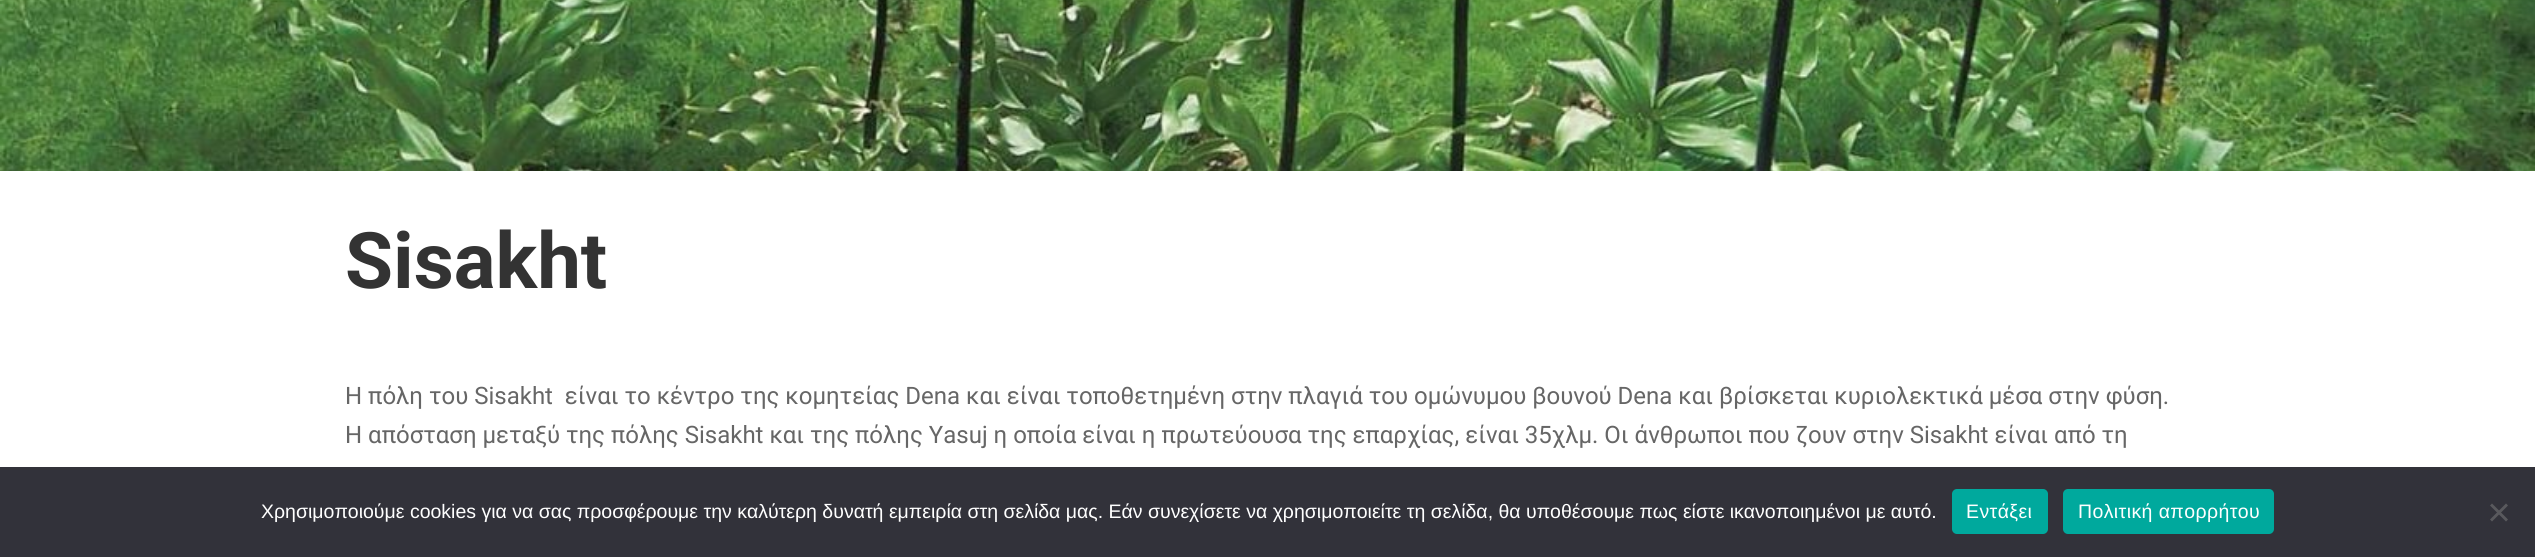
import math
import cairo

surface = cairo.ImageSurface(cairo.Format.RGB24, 2535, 557)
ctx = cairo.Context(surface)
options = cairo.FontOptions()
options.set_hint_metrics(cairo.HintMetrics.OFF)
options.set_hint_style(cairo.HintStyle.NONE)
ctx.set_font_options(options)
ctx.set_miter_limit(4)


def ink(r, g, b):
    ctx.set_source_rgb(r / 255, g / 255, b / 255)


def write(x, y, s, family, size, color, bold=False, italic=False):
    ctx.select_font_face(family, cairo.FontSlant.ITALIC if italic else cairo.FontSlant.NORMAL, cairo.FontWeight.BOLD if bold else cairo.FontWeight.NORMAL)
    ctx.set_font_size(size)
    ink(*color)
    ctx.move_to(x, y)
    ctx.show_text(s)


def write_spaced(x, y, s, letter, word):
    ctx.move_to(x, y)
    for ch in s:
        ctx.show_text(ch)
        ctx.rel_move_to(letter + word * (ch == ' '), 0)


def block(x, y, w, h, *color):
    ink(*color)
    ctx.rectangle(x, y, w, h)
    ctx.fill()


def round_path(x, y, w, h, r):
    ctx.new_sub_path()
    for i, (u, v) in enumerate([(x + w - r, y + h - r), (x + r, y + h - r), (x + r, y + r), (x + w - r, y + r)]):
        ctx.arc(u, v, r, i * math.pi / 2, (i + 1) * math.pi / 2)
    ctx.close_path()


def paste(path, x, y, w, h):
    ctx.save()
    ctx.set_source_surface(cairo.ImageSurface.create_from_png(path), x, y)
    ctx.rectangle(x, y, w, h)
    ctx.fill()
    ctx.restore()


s1 = dict(family="Roboto", size=78, color=(51, 51, 51), bold=True)
s2 = dict(family="Roboto", size=24, color=(102, 102, 102))
s3 = dict(family="Liberation Sans", size=19.5, color=(255, 255, 255))

ink(255, 255, 255)
ctx.paint()
paste("pic1.png", 0, 0, 2535, 171)
write(345, 288, "Sisakht", **s1)
write(345, 404, "Η πόλη του Sisakht  είναι το κέντρο της κομητείας Dena και είναι τοποθετημένη στην πλαγιά του ομώνυμου βουνού Dena και βρίσκεται κυριολεκτικά μέσα στην φύση.", **s2)
write(345, 443, "Η απόσταση μεταξύ της πόλης Sisakht και της πόλης Yasuj η οποία είναι η πρωτεύουσα της επαρχίας, είναι 35χλμ. Οι άνθρωποι που ζουν στην Sisakht είναι από τη", **s2)
block(0, 467, 2535, 90, 50, 50, 58)
write(261, 518, "Χρησιμοποιούμε cookies για να σας προσφέρουμε την καλύτερη δυνατή εμπειρία στη σελίδα μας. Εάν συνεχίσετε να χρησιμοποιείτε τη σελίδα, θα υποθέσουμε πως είστε ικανοποιημένοι με αυτό.", **s3)
ink(0, 169, 157)
round_path(1952, 489, 96, 45, 5)
ctx.fill()
ink(255, 255, 255)
write_spaced(1966, 518, "Εντάξει", 0.4, 0)
ink(0, 169, 157)
round_path(2063, 489, 211, 45, 5)
ctx.fill()
ink(255, 255, 255)
write_spaced(2078, 518, "Πολιτική απορρήτου", 0.4, 0)
ink(89, 89, 93)
ctx.new_path()
ctx.move_to(2506, 503.5)
ctx.line_to(2508, 505.5)
ctx.line_to(2492, 521.5)
ctx.line_to(2490, 519.5)
ctx.close_path()
ctx.fill()
ctx.new_path()
ctx.move_to(2490, 505.5)
ctx.line_to(2492, 503.5)
ctx.line_to(2508, 519.5)
ctx.line_to(2506, 521.5)
ctx.close_path()
ctx.fill()
surface.write_to_png("screenshot.png")
